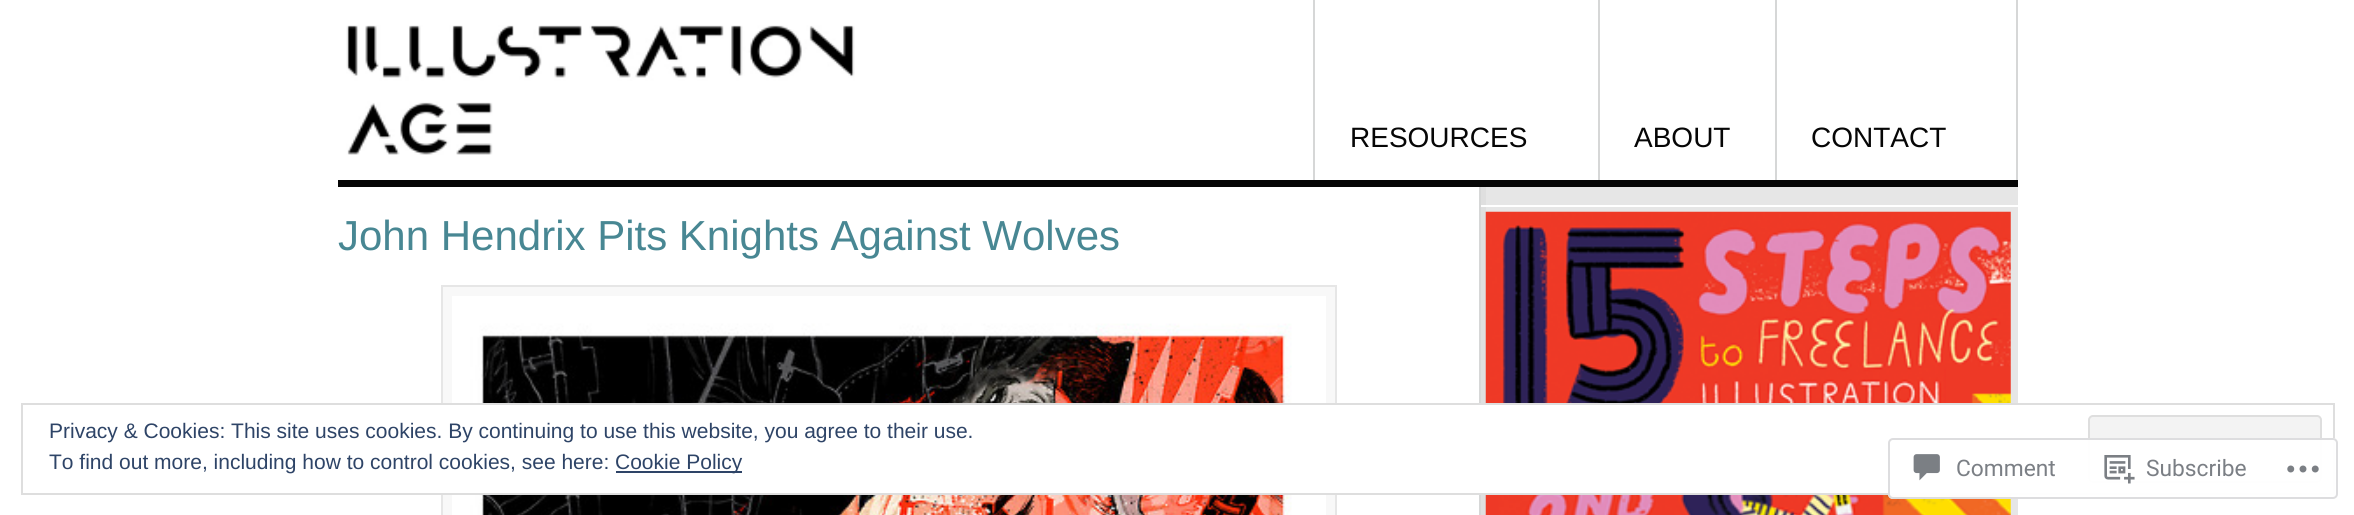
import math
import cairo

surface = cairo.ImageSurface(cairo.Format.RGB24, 2354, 515)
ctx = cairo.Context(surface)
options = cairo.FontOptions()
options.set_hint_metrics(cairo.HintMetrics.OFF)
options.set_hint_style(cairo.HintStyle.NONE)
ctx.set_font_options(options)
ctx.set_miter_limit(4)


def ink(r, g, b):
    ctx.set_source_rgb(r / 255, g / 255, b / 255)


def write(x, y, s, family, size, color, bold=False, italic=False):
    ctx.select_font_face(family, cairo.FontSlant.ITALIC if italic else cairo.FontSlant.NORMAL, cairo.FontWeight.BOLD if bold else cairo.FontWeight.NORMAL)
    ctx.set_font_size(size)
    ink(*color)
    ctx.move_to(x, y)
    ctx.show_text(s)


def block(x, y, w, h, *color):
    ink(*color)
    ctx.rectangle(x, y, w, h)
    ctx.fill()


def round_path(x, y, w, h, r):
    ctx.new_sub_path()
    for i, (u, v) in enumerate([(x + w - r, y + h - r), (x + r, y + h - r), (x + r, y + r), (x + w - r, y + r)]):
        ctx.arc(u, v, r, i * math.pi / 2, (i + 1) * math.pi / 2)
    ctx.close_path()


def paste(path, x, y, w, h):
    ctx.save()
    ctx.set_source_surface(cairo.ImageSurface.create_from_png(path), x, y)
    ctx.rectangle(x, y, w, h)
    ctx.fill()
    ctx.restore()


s1 = dict(family="Liberation Sans", size=28, color=(6, 6, 6))
s2 = dict(family="Liberation Sans", size=42, color=(72, 135, 147))
s3 = dict(family="Liberation Sans", size=21, color=(46, 68, 103))
s4 = dict(family="Roboto", size=22.75, color=(123, 127, 133))

ink(255, 255, 255)
ctx.paint()
block(338, 180, 1680, 7, 6, 6, 6)
paste("pic1.png", 346, 25, 509, 130)
block(1313, 0, 2, 180, 214, 215, 215)
block(1598, 0, 2, 180, 214, 215, 215)
write(1350, 147, "RESOURCES", **s1)
block(1775, 0, 2, 180, 214, 215, 215)
write(1634, 147, "ABOUT", **s1)
block(2016, 0, 2, 180, 214, 215, 215)
write(1811, 147, "CONTACT", **s1)
write(338, 250, "John Hendrix Pits Knights Against Wolves", **s2)
ink(248, 248, 248)
ctx.rectangle(442, 286, 894, 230)
ctx.fill_preserve()
ink(230, 230, 230)
ctx.stroke()
paste("pic2.png", 452, 296, 874, 219)
block(1486, 187, 532, 328, 230, 230, 230)
block(1481, 187, 5, 328, 223, 223, 223)
block(1479, 187, 2, 328, 214, 215, 215)
block(1481, 205, 537, 2, 255, 255, 255)
paste("pic3.png", 1485, 211, 526, 304)
block(441, 405, 1577, 88, 255, 255, 255)
ctx.rectangle(22, 404, 2312, 90)
ink(222, 222, 222)
ctx.stroke()
write(49, 438, "Privacy & Cookies: This site uses cookies. By continuing to use this website, you agree to their use.", **s3)
ink(243, 243, 243)
round_path(2089, 416, 232, 66, 4)
ctx.fill_preserve()
ink(222, 222, 222)
ctx.stroke()
write(49, 469, "To find out more, including how to control cookies, see here:", **s3)
block(616, 471, 126, 2, 46, 68, 103)
write(615, 469, "Cookie Policy", **s3)
ctx.set_source_rgba(1, 1, 1, 0.98)
round_path(1888, 438, 450, 61, 5)
ctx.fill()
round_path(1889, 439, 448, 59, 4)
ctx.set_source_rgba(0.863, 0.863, 0.871, 0.98)
ctx.stroke()
paste("pic4.png", 1913, 454, 27, 27)
write(1956, 476, "Comment", **s4)
paste("pic5.png", 2104, 455, 31, 29)
write(2146, 476, "Subscribe", **s4)
paste("pic6.png", 2287, 465, 32, 8)
surface.write_to_png("screenshot.png")
